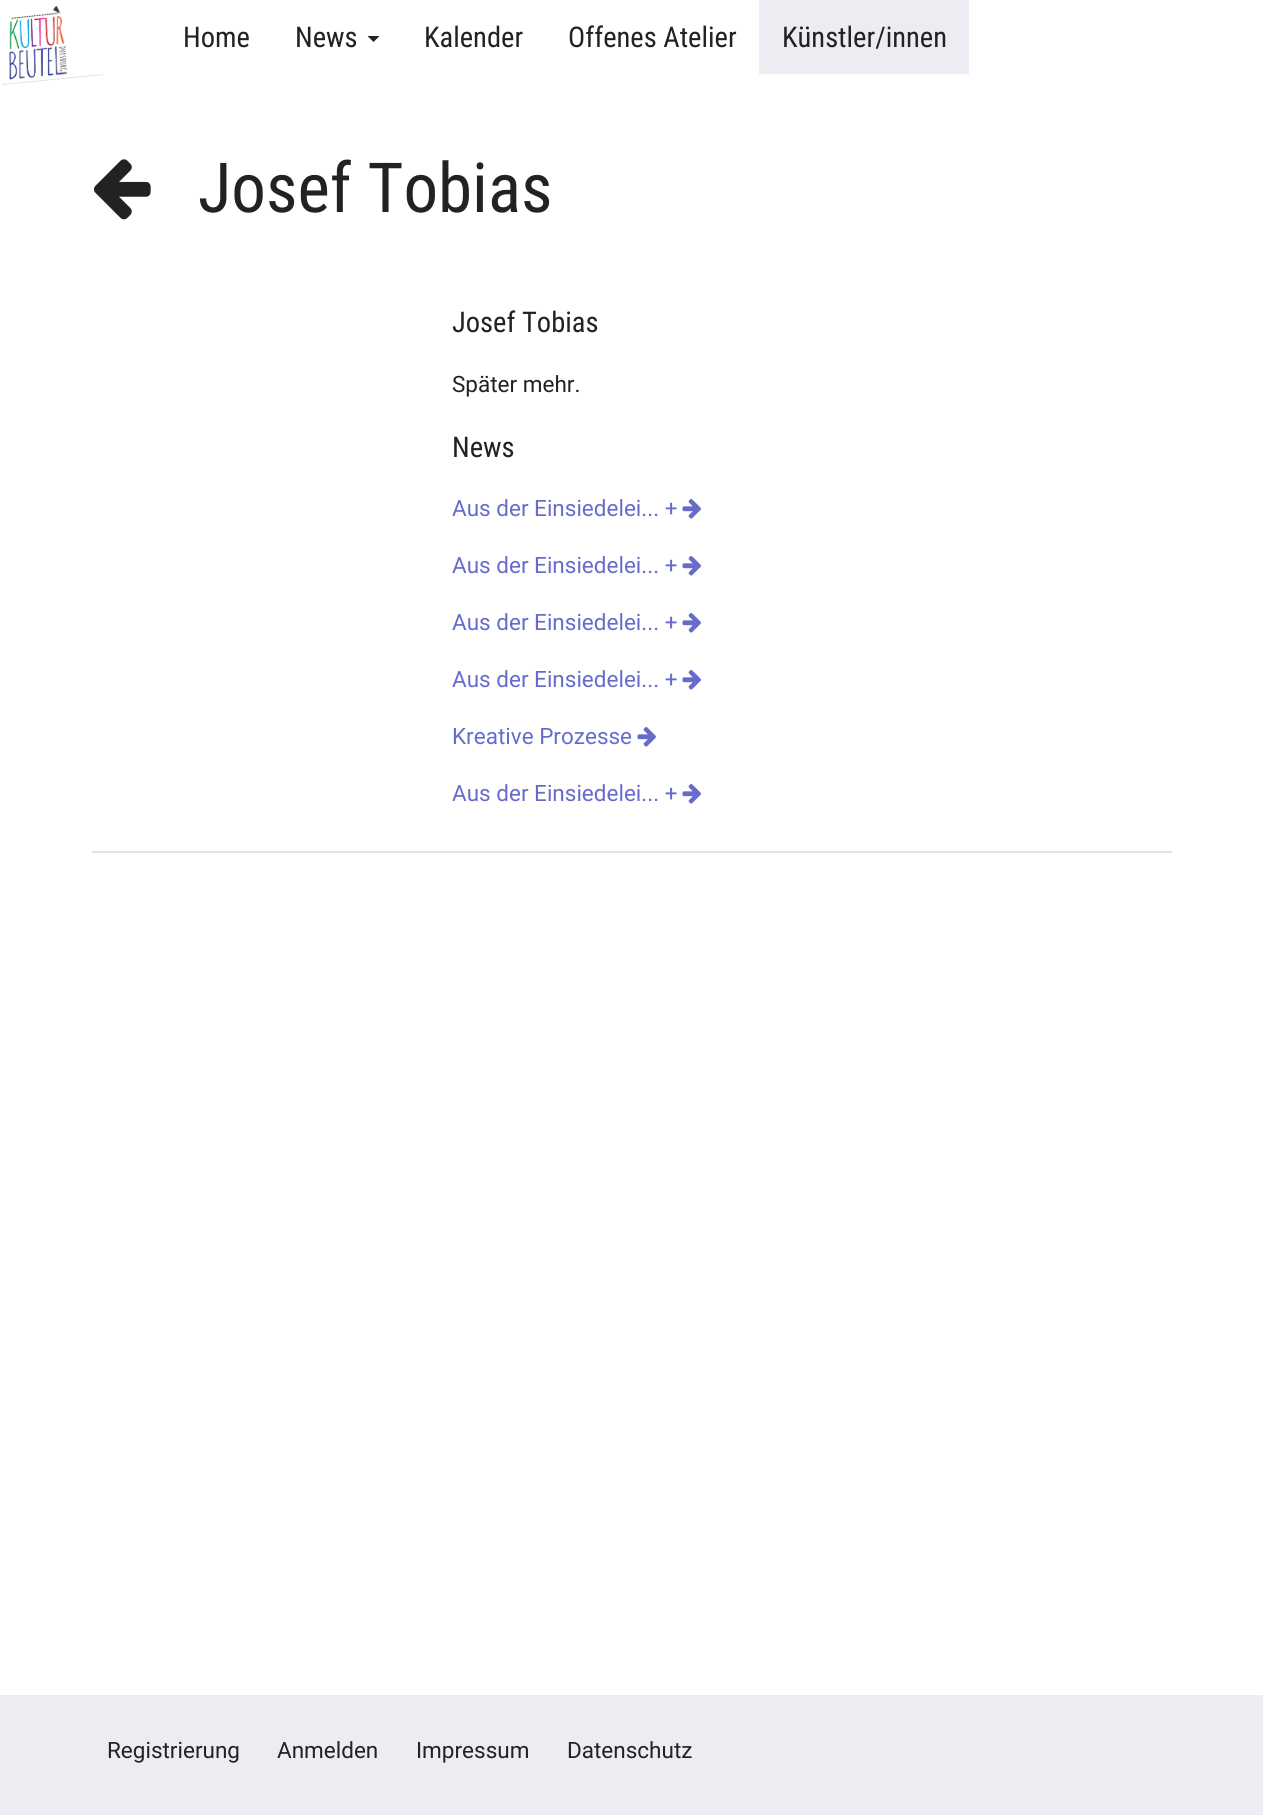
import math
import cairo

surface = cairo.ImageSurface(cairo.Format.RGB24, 1263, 1818)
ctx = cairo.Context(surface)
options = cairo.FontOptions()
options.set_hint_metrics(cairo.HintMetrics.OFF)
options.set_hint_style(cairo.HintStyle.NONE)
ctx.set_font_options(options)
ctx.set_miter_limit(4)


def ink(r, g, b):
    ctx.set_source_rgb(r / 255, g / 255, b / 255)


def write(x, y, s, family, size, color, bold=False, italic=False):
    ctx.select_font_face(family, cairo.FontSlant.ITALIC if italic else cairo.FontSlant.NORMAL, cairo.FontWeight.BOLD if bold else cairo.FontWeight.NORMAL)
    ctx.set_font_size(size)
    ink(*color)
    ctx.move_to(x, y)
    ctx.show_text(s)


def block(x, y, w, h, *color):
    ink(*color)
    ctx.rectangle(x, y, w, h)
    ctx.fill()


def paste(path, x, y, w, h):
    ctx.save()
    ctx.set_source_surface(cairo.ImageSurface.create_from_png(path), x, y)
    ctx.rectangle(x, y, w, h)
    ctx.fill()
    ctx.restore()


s1 = dict(family="Roboto Condensed", size=28.5, color=(34, 34, 34))
s2 = dict(family="Roboto Condensed", size=69, color=(34, 34, 34))
s3 = dict(family="Roboto", size=22.5, color=(34, 34, 34))
s4 = dict(family="Roboto", size=22.5, color=(103, 108, 204))

ink(255, 255, 255)
ctx.paint()
ink(227, 227, 227)
ctx.new_path()
ctx.move_to(2, 84)
ctx.line_to(103, 74)
ctx.line_to(103, 75)
ctx.line_to(2, 85)
ctx.close_path()
ctx.fill()
paste("pic1.png", 9, 5, 59, 75)
write(183, 47, "Home", **s1)
write(295, 47, "News", **s1)
ctx.new_path()
ctx.move_to(367.5, 36)
ctx.line_to(379.5, 36)
ctx.line_to(373.5, 42)
ctx.close_path()
ctx.fill()
write(424, 47, "Kalender", **s1)
write(568, 47, "Offenes Atelier", **s1)
block(759, 0, 210, 74, 236, 236, 242)
write(782, 47, "Künstler/innen", **s1)
paste("pic2.png", 94, 159, 57, 61)
write(198, 212, "Josef Tobias", **s2)
write(452, 332, "Josef Tobias", **s1)
write(452, 392, "Später mehr.", **s3)
write(452, 457, "News", **s1)
write(452, 516, "Aus der Einsiedelei... +", **s4)
paste("pic3.png", 682, 499, 19, 20)
write(452, 573, "Aus der Einsiedelei... +", **s4)
paste("pic3.png", 682, 556, 19, 20)
write(452, 630, "Aus der Einsiedelei... +", **s4)
paste("pic3.png", 682, 613, 19, 20)
write(452, 687, "Aus der Einsiedelei... +", **s4)
paste("pic3.png", 682, 670, 19, 20)
write(452, 744, "Kreative Prozesse", **s4)
paste("pic3.png", 637, 727, 19, 20)
write(452, 801, "Aus der Einsiedelei... +", **s4)
paste("pic3.png", 682, 784, 19, 20)
block(92, 851, 1080, 2, 227, 227, 227)
block(0, 1695, 1263, 120, 236, 236, 242)
write(107, 1758, "Registrierung", **s3)
write(277, 1758, "Anmelden", **s3)
write(416, 1758, "Impressum", **s3)
write(567, 1758, "Datenschutz", **s3)
surface.write_to_png("screenshot.png")
